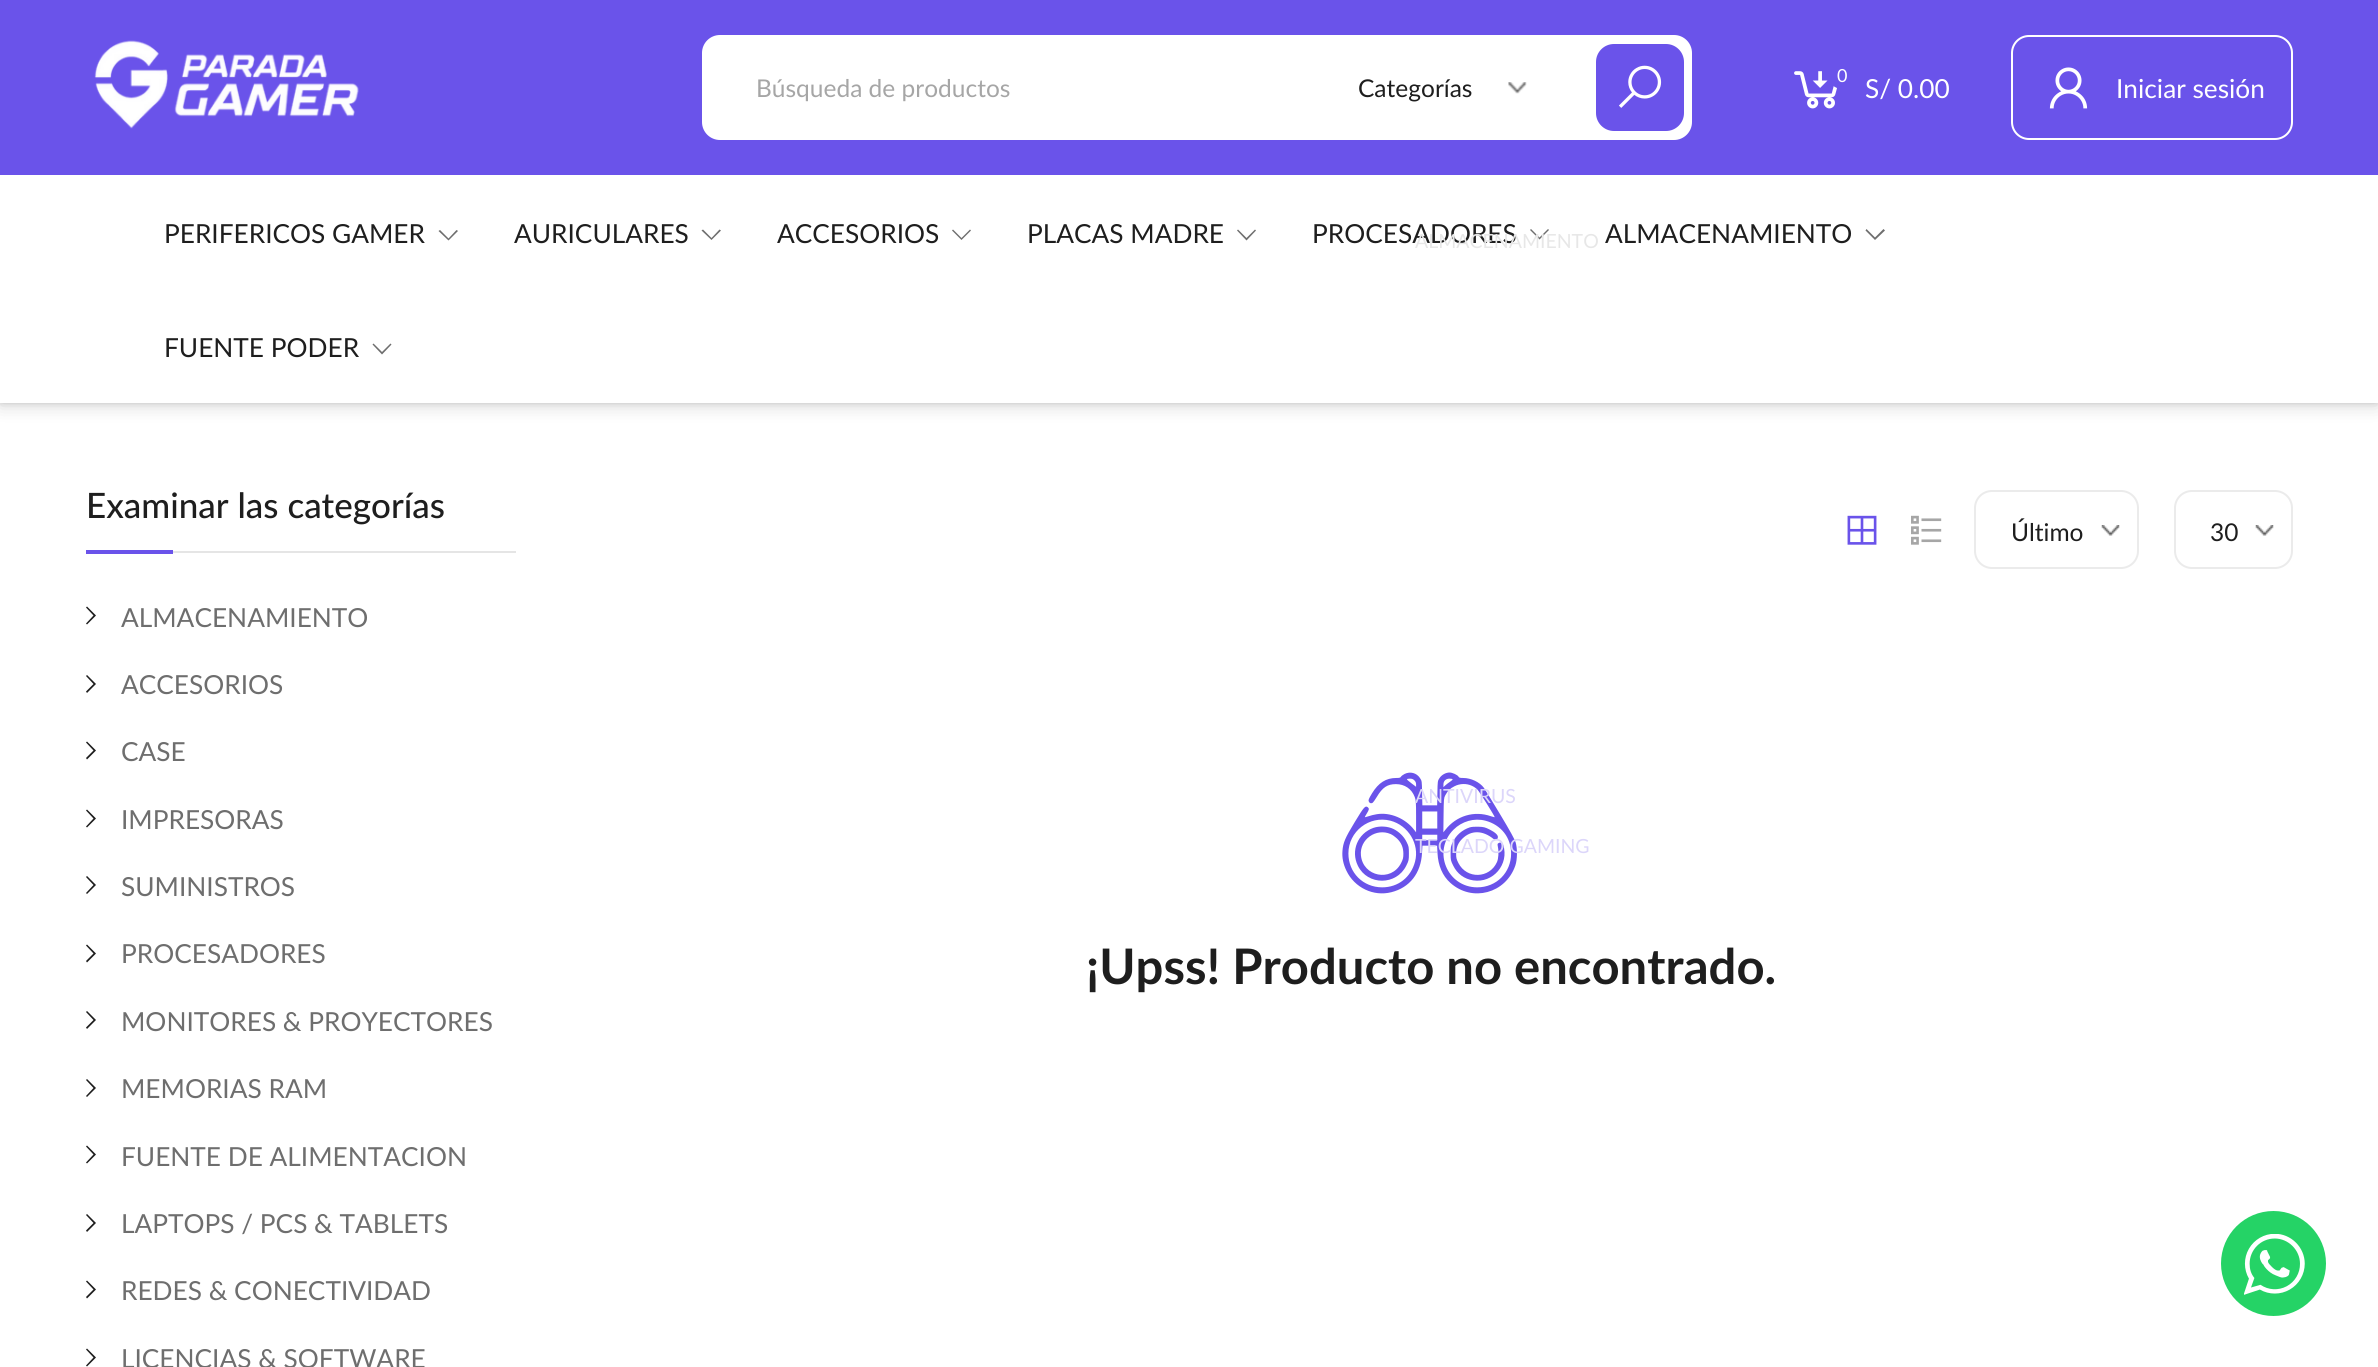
import math
import cairo

surface = cairo.ImageSurface(cairo.Format.RGB24, 2378, 1367)
ctx = cairo.Context(surface)
options = cairo.FontOptions()
options.set_hint_metrics(cairo.HintMetrics.OFF)
options.set_hint_style(cairo.HintStyle.NONE)
ctx.set_font_options(options)
ctx.set_miter_limit(4)


def ink(r, g, b):
    ctx.set_source_rgb(r / 255, g / 255, b / 255)


def write(x, y, s, family, size, color, bold=False, italic=False):
    ctx.select_font_face(family, cairo.FontSlant.ITALIC if italic else cairo.FontSlant.NORMAL, cairo.FontWeight.BOLD if bold else cairo.FontWeight.NORMAL)
    ctx.set_font_size(size)
    ink(*color)
    ctx.move_to(x, y)
    ctx.show_text(s)


def block(x, y, w, h, *color):
    ink(*color)
    ctx.rectangle(x, y, w, h)
    ctx.fill()


def round_path(x, y, w, h, r):
    ctx.new_sub_path()
    for i, (u, v) in enumerate([(x + w - r, y + h - r), (x + r, y + h - r), (x + r, y + r), (x + w - r, y + r)]):
        ctx.arc(u, v, r, i * math.pi / 2, (i + 1) * math.pi / 2)
    ctx.close_path()


def blur_box(x, y, w, h, r, blur, alpha):
    ctx.push_group_with_content(cairo.Content.ALPHA)
    ctx.set_operator(cairo.Operator.SOURCE)
    for i in range(15, -16, -2):
        e = blur * i / 6
        if min(w, h) + 2 * e > 0:
            ctx.set_source_rgba(0, 0, 0, alpha * math.erfc((i - 1) / 8.5) / 2)
            round_path(x - e, y - e, w + 2 * e, h + 2 * e, max(0, min(r + e + blur * .6, min(w, h) / 2 + e)))
            ctx.fill()
    ctx.mask(ctx.pop_group())


def paste(path, x, y, w, h):
    ctx.save()
    ctx.set_source_surface(cairo.ImageSurface.create_from_png(path), x, y)
    ctx.rectangle(x, y, w, h)
    ctx.fill()
    ctx.restore()


s1 = dict(family="Lato", size=24.5, color=(166, 166, 166))
s2 = dict(family="Lato", size=24.5, color=(30, 30, 30))
s3 = dict(family="Lato", size=26.25, color=(30, 30, 30))
s4 = dict(family="Lato", size=19.5, color=(231, 231, 231))
s5 = dict(family="Lato", size=19.5, color=(220, 214, 250))
s6 = dict(family="Lato", size=18, color=(255, 255, 255))
s7 = dict(family="Lato", size=26.25, color=(255, 255, 255))
s8 = dict(family="Lato Medium", size=35, color=(30, 30, 30))
s9 = dict(family="Lato", size=26.25, color=(110, 110, 110))
s10 = dict(family="Lato", size=49, color=(30, 30, 30), bold=True)

ink(255, 255, 255)
ctx.paint()
ink(0, 0, 0)
blur_box(0, 2, 2378, 402, 0, 2.5, 0.1)
block(0, 175, 2378, 228, 255, 255, 255)
ctx.save()
ctx.set_fill_rule(cairo.FillRule.EVEN_ODD)
ctx.new_path()
ctx.move_to(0, 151)
ctx.line_to(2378, 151)
ctx.line_to(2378, 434)
ctx.line_to(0, 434)
ctx.close_path()
ctx.move_to(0, 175)
ctx.line_to(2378, 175)
ctx.line_to(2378, 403)
ctx.line_to(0, 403)
ctx.close_path()
ctx.clip()
ink(0, 0, 0)
blur_box(0, 179, 2378, 227, 0, 9, 0.15)
ctx.restore()
block(0, 0, 2378, 175, 106, 83, 234)
paste("pic1.png", 94, 40, 265, 89)
ink(255, 255, 255)
round_path(703, 36, 988, 103, 17)
ctx.fill_preserve()
ctx.stroke()
write(756, 97, "Búsqueda de productos", **s1)
paste("pic2.png", 1508, 82, 19, 12)
write(1358, 97, "Categorías", **s2)
write(1312, 243, "PROCESADORES", **s3)
ink(110, 110, 110)
ctx.new_path()
ctx.move_to(1549, 230)
ctx.line_to(1548, 229)
ctx.line_to(1539.5, 237.5)
ctx.line_to(1531, 229)
ctx.line_to(1530, 230)
ctx.line_to(1539.5, 239.5)
ctx.close_path()
ctx.fill()
write(1415, 248, "ALMACENAMIENTO", **s4)
paste("pic9.png", 1342, 772, 175, 122)
write(1415, 803, "ANTIVIRUS", **s5)
write(1415, 853, "TECLADO GAMING", **s5)
ink(106, 83, 234)
round_path(1596, 44, 88, 87, 18)
ctx.fill()
paste("pic3.png", 1619, 65, 43, 43)
paste("pic4.png", 1794, 71, 43, 38)
round_path(1827, 58, 32, 31, 15.5)
ctx.fill()
write(1837, 82, "0", **s6)
write(1865, 98, "S/ 0.00", **s7)
round_path(2012, 36, 280, 103, 17)
ctx.stroke()
paste("pic5.png", 2049, 67, 39, 42)
write(2116, 98, "Iniciar sesión", **s7)
write(164, 243, "PERIFERICOS GAMER", **s3)
ink(110, 110, 110)
ctx.new_path()
ctx.move_to(458, 231)
ctx.line_to(456.5, 230)
ctx.line_to(448.5, 238.5)
ctx.line_to(440, 230)
ctx.line_to(438.5, 231)
ctx.line_to(448.5, 240.5)
ctx.close_path()
ctx.fill()
write(514, 243, "AURICULARES", **s3)
ink(110, 110, 110)
ctx.new_path()
ctx.move_to(721, 230.5)
ctx.line_to(719.5, 229.5)
ctx.line_to(711.5, 238)
ctx.line_to(703, 229.5)
ctx.line_to(701.5, 230.5)
ctx.line_to(711.5, 240)
ctx.close_path()
ctx.fill()
write(777, 243, "ACCESORIOS", **s3)
ink(110, 110, 110)
ctx.new_path()
ctx.move_to(971, 230.5)
ctx.line_to(970, 229.5)
ctx.line_to(961.5, 238)
ctx.line_to(953, 229.5)
ctx.line_to(952, 230.5)
ctx.line_to(961.5, 240)
ctx.close_path()
ctx.fill()
write(1027, 243, "PLACAS MADRE", **s3)
ink(110, 110, 110)
ctx.new_path()
ctx.move_to(1256, 230.5)
ctx.line_to(1255, 229.5)
ctx.line_to(1246.5, 238)
ctx.line_to(1238, 229.5)
ctx.line_to(1237, 230.5)
ctx.line_to(1246.5, 240.5)
ctx.close_path()
ctx.fill()
write(1605, 243, "ALMACENAMIENTO", **s3)
ink(110, 110, 110)
ctx.new_path()
ctx.move_to(1885, 230.5)
ctx.line_to(1883.5, 229)
ctx.line_to(1875, 237.5)
ctx.line_to(1866.5, 229)
ctx.line_to(1865.5, 230.5)
ctx.line_to(1875, 240)
ctx.close_path()
ctx.fill()
write(164, 357, "FUENTE PODER", **s3)
ink(110, 110, 110)
ctx.new_path()
ctx.move_to(391.5, 344.5)
ctx.line_to(390.5, 343.5)
ctx.line_to(382, 352)
ctx.line_to(373.5, 343.5)
ctx.line_to(372.5, 344.5)
ctx.line_to(382, 354.5)
ctx.close_path()
ctx.fill()
block(173, 551, 343, 2, 229, 229, 229)
write(86, 518, "Examinar las categorías", **s8)
block(86, 550, 87, 4, 106, 83, 234)
ink(30, 30, 30)
ctx.new_path()
ctx.move_to(87, 606.5)
ctx.line_to(86, 607.5)
ctx.line_to(93.5, 615.5)
ctx.line_to(86, 623.5)
ctx.line_to(87, 624.5)
ctx.line_to(96, 615.5)
ctx.close_path()
ctx.fill()
write(121, 627, "ALMACENAMIENTO", **s9)
ink(30, 30, 30)
ctx.new_path()
ctx.move_to(87, 675)
ctx.line_to(86, 676)
ctx.line_to(93.5, 684)
ctx.line_to(86, 691.5)
ctx.line_to(87, 693)
ctx.line_to(96, 684)
ctx.close_path()
ctx.fill()
write(121, 694, "ACCESORIOS", **s9)
ink(30, 30, 30)
ctx.new_path()
ctx.move_to(87, 741.5)
ctx.line_to(86, 742.5)
ctx.line_to(93.5, 750.5)
ctx.line_to(86, 758)
ctx.line_to(87, 759.5)
ctx.line_to(96, 750.5)
ctx.close_path()
ctx.fill()
write(121, 761, "CASE", **s9)
ink(30, 30, 30)
ctx.new_path()
ctx.move_to(87, 809.5)
ctx.line_to(86, 810.5)
ctx.line_to(93.5, 818.5)
ctx.line_to(86, 826.5)
ctx.line_to(87, 827.5)
ctx.line_to(96, 818.5)
ctx.close_path()
ctx.fill()
write(121, 829, "IMPRESORAS", **s9)
ink(30, 30, 30)
ctx.new_path()
ctx.move_to(87, 876)
ctx.line_to(86, 877)
ctx.line_to(93.5, 885)
ctx.line_to(86, 893)
ctx.line_to(87, 894)
ctx.line_to(96, 885)
ctx.close_path()
ctx.fill()
write(121, 896, "SUMINISTROS", **s9)
ink(30, 30, 30)
ctx.new_path()
ctx.move_to(87, 944.5)
ctx.line_to(86, 945.5)
ctx.line_to(93.5, 953.5)
ctx.line_to(86, 961)
ctx.line_to(87, 962.5)
ctx.line_to(96, 953.5)
ctx.close_path()
ctx.fill()
write(121, 963, "PROCESADORES", **s9)
ink(30, 30, 30)
ctx.new_path()
ctx.move_to(87, 1011)
ctx.line_to(86, 1012)
ctx.line_to(93.5, 1020)
ctx.line_to(86, 1027.5)
ctx.line_to(87, 1029)
ctx.line_to(96, 1020)
ctx.close_path()
ctx.fill()
write(121, 1031, "MONITORES & PROYECTORES", **s9)
ink(30, 30, 30)
ctx.new_path()
ctx.move_to(87, 1079)
ctx.line_to(86, 1080)
ctx.line_to(93.5, 1088)
ctx.line_to(86, 1096)
ctx.line_to(87, 1097)
ctx.line_to(96, 1088)
ctx.close_path()
ctx.fill()
write(121, 1098, "MEMORIAS RAM", **s9)
ink(30, 30, 30)
ctx.new_path()
ctx.move_to(87, 1145.5)
ctx.line_to(86, 1146.5)
ctx.line_to(93.5, 1154.5)
ctx.line_to(86, 1162.5)
ctx.line_to(87, 1163.5)
ctx.line_to(96, 1154.5)
ctx.close_path()
ctx.fill()
write(121, 1166, "FUENTE DE ALIMENTACION", **s9)
ink(30, 30, 30)
ctx.new_path()
ctx.move_to(87, 1214)
ctx.line_to(86, 1215)
ctx.line_to(93.5, 1223)
ctx.line_to(86, 1230.5)
ctx.line_to(87, 1232)
ctx.line_to(96, 1223)
ctx.close_path()
ctx.fill()
write(121, 1233, "LAPTOPS / PCS & TABLETS", **s9)
ink(30, 30, 30)
ctx.new_path()
ctx.move_to(87, 1280.5)
ctx.line_to(86, 1281.5)
ctx.line_to(93.5, 1289.5)
ctx.line_to(86, 1297)
ctx.line_to(87, 1298.5)
ctx.line_to(96, 1289.5)
ctx.close_path()
ctx.fill()
write(121, 1300, "REDES & CONECTIVIDAD", **s9)
ink(30, 30, 30)
ctx.new_path()
ctx.move_to(87, 1348.5)
ctx.line_to(86, 1349.5)
ctx.line_to(93.5, 1357.5)
ctx.line_to(86, 1365.5)
ctx.line_to(87, 1366.5)
ctx.line_to(96, 1357.5)
ctx.close_path()
ctx.fill()
write(121, 1368, "LICENCIAS & SOFTWARE", **s9)
paste("pic6.png", 1847, 515, 30, 30)
paste("pic7.png", 1911, 515, 31, 30)
paste("pic8.png", 2101, 525, 19, 11)
round_path(1975, 491, 163, 77, 17)
ink(235, 235, 235)
ctx.stroke()
write(2011, 541, "Último", **s2)
paste("pic8.png", 2255, 525, 19, 11)
round_path(2175, 491, 117, 77, 17)
ink(235, 235, 235)
ctx.stroke()
write(2210, 541, "30", **s2)
write(1086, 984, "¡Upss! Producto no encontrado.", **s10)
ink(37, 211, 102)
ctx.new_path()
ctx.arc(2273.5, 1263.5, 52.5, 0, 2 * math.pi)
ctx.fill()
paste("pic10.png", 2244, 1234, 61, 61)
surface.write_to_png("screenshot.png")
